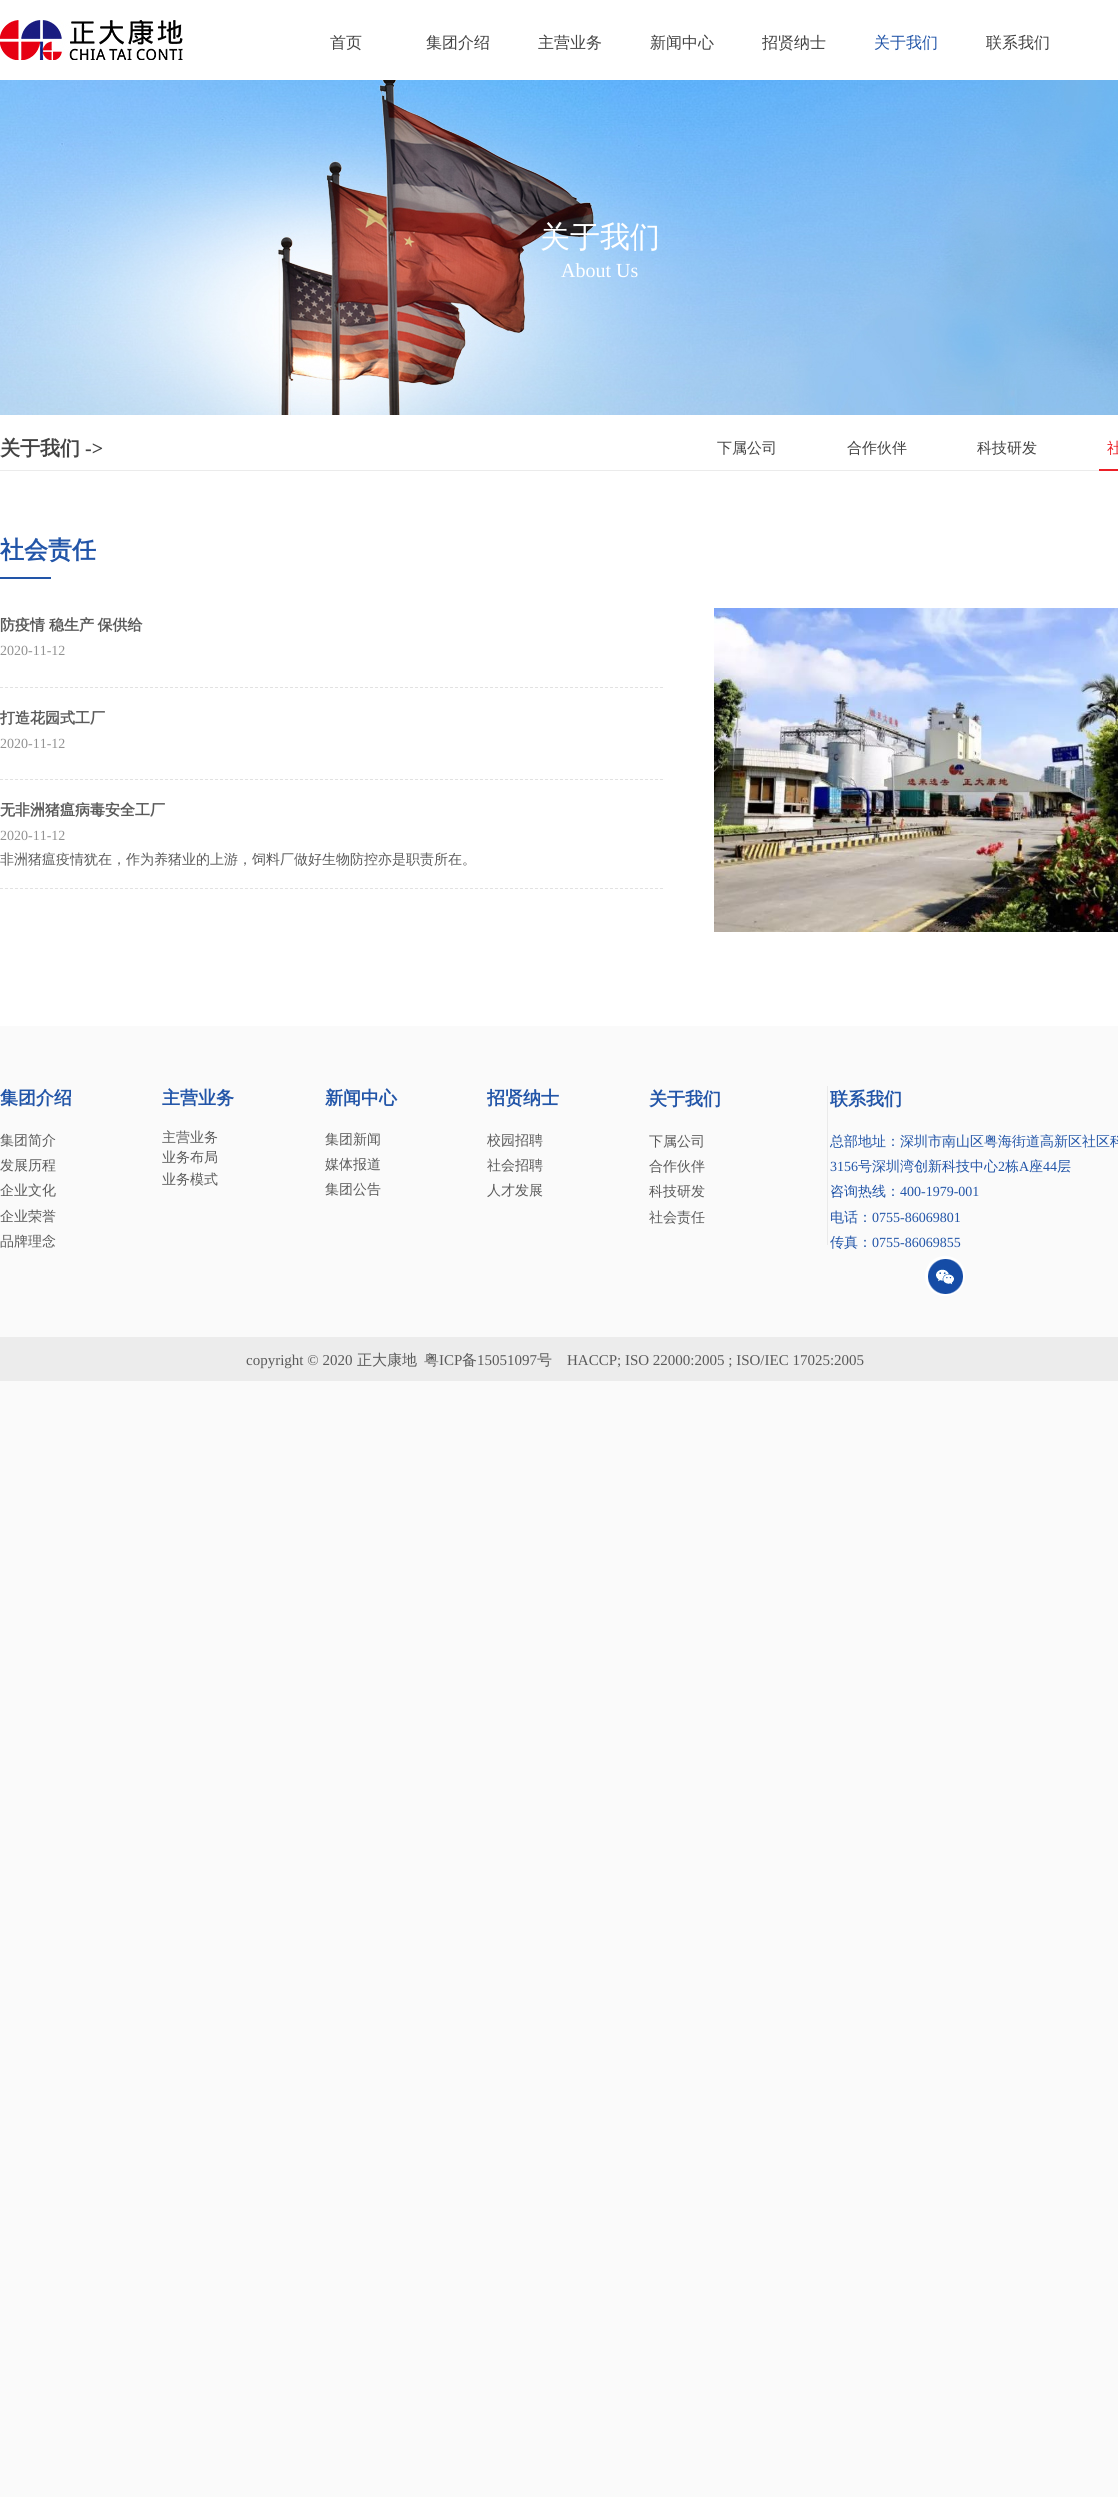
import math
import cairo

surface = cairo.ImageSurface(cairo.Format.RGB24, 1118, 2497)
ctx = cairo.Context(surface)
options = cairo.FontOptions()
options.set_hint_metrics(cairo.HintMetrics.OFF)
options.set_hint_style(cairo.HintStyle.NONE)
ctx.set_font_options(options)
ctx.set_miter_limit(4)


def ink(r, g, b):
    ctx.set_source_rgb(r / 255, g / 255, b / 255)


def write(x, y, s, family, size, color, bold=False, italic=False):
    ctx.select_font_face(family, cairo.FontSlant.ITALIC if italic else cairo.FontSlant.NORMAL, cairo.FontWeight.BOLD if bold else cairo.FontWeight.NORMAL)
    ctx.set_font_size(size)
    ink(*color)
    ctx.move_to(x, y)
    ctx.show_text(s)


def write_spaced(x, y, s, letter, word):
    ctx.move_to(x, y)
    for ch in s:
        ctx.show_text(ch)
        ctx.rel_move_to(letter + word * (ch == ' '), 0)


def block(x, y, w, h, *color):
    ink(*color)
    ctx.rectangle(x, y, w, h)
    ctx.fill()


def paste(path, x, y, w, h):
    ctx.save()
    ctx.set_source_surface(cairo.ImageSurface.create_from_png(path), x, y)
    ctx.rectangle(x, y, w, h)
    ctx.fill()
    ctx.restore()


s1 = dict(family="WenQuanYi Zen Hei Medium", size=16, color=(67, 67, 67))
s2 = dict(family="WenQuanYi Zen Hei Medium", size=16, color=(34, 85, 168))
s3 = dict(family="WenQuanYi Zen Hei Medium", size=30, color=(255, 255, 255))
s4 = dict(family="Liberation Serif", size=20, color=(255, 255, 255))
s5 = dict(family="WenQuanYi Zen Hei", size=20, color=(67, 67, 67), bold=True)
s6 = dict(family="Liberation Serif", size=20, color=(67, 67, 67), bold=True)
s7 = dict(family="WenQuanYi Zen Hei Medium", size=15, color=(67, 67, 67))
s8 = dict(family="WenQuanYi Zen Hei Medium", size=15, color=(236, 31, 39))
s9 = dict(family="WenQuanYi Zen Hei", size=24, color=(34, 85, 168), bold=True)
s10 = dict(family="WenQuanYi Zen Hei", size=15, color=(90, 90, 90), bold=True)
s11 = dict(family="Liberation Serif", size=14, color=(146, 146, 146))
s12 = dict(family="WenQuanYi Zen Hei Medium", size=14, color=(90, 90, 90))
s13 = dict(family="WenQuanYi Zen Hei", size=18, color=(34, 85, 168), bold=True)
s14 = dict(family="WenQuanYi Zen Hei Medium", size=14, color=(34, 85, 168))
s15 = dict(family="Liberation Serif", size=14, color=(34, 85, 168))
s16 = dict(family="Liberation Serif", size=15, color=(90, 90, 90))
s17 = dict(family="WenQuanYi Zen Hei Medium", size=15, color=(90, 90, 90))

ink(255, 255, 255)
ctx.paint()
paste("pic1.png", 0, 20, 183, 40)
write(330, 48, "首页", **s1)
write(426, 48, "集团介绍", **s1)
write(538, 48, "主营业务", **s1)
write(650, 48, "新闻中心", **s1)
write(762, 48, "招贤纳士", **s1)
write(874, 48, "关于我们", **s2)
write(986, 48, "联系我们", **s1)
paste("pic2.png", 0, 80, 1118, 335)
write(540, 247, "关于我们", **s3)
write(561, 277, "About Us", **s4)
write(0, 455, "关于我们", **s5)
write(85, 455, "->", **s6)
write(717, 453, "下属公司", **s7)
write(847, 453, "合作伙伴", **s7)
write(977, 453, "科技研发", **s7)
block(1099, 469, 19, 2, 236, 31, 39)
write(1107, 453, "社", **s8)
block(0, 470, 1099, 1, 235, 235, 235)
write(0, 558, "社会责任", **s9)
block(0, 577, 51, 2, 34, 85, 168)
write(0, 630, "防疫情", **s10)
write_spaced(49, 630, "稳生产 保供给", 0, -1)
write(0, 655, "2020-11-12", **s11)
ctx.new_path()
ctx.move_to(0, 687.5)
ctx.line_to(663, 687.5)
ink(226, 226, 226)
ctx.set_line_width(1)
ctx.set_dash([3, 2])
ctx.stroke()
write(0, 723, "打造花园式工厂", **s10)
write(0, 748, "2020-11-12", **s11)
ctx.new_path()
ctx.move_to(0, 779.5)
ctx.line_to(663, 779.5)
ink(226, 226, 226)
ctx.stroke()
write(0, 815, "无非洲猪瘟病毒安全工厂", **s10)
write(0, 840, "2020-11-12", **s11)
write(0, 864, "非洲猪瘟疫情犹在，作为养猪业的上游，饲料厂做好生物防控亦是职责所在。", **s12)
ctx.new_path()
ctx.move_to(0, 888.5)
ctx.line_to(663, 888.5)
ink(226, 226, 226)
ctx.stroke()
paste("pic3.png", 714, 608, 404, 324)
block(0, 1026, 1118, 1471, 250, 250, 250)
write(0, 1104, "集团介绍", **s13)
write(0, 1145, "集团简介", **s12)
write(0, 1170, "发展历程", **s12)
write(0, 1195, "企业文化", **s12)
write(0, 1221, "企业荣誉", **s12)
write(0, 1246, "品牌理念", **s12)
write(162, 1104, "主营业务", **s13)
write(162, 1142, "主营业务", **s12)
write(162, 1162, "业务布局", **s12)
write(162, 1184, "业务模式", **s12)
write(325, 1104, "新闻中心", **s13)
write(325, 1144, "集团新闻", **s12)
write(325, 1169, "媒体报道", **s12)
write(325, 1194, "集团公告", **s12)
write(487, 1104, "招贤纳士", **s13)
write(487, 1145, "校园招聘", **s12)
write(487, 1170, "社会招聘", **s12)
write(487, 1195, "人才发展", **s12)
write(649, 1105, "关于我们", **s13)
write(649, 1146, "下属公司", **s12)
write(649, 1171, "合作伙伴", **s12)
write(649, 1196, "科技研发", **s12)
write(649, 1222, "社会责任", **s12)
block(827, 1086, 1, 159, 234, 234, 234)
write(830, 1105, "联系我们", **s13)
write(830, 1146, "总部地址：深圳市南山区粤海街道高新区社区科", **s14)
write(830, 1171, "3156", **s15)
write(858, 1171, "号深圳湾创新科技中心", **s14)
write(998, 1171, "2", **s15)
write(1005, 1171, "栋", **s14)
write(1019, 1171, "A", **s15)
write(1029, 1171, "座", **s14)
write(1043, 1171, "44", **s15)
write(1057, 1171, "层", **s14)
write(830, 1196, "咨询热线：", **s14)
write(900, 1196, "400-1979-001", **s15)
write(830, 1222, "电话：", **s14)
write(872, 1222, "0755-86069801", **s15)
write(830, 1247, "传真：", **s14)
write(872, 1247, "0755-86069855", **s15)
paste("pic4.png", 925, 1256, 40, 40)
block(0, 1337, 1118, 44, 236, 236, 236)
write(246, 1365, "copyright © 2020", **s16)
write(357, 1365, "正大康地", **s17)
write(424, 1365, "粤", **s17)
write(439, 1365, "ICP", **s16)
write(462, 1365, "备", **s17)
write(477, 1365, "15051097", **s16)
write(537, 1365, "号", **s17)
write(567, 1365, "HACCP; ISO 22000:2005 ; ISO/IEC 17025:2005", **s16)
surface.write_to_png("screenshot.png")
